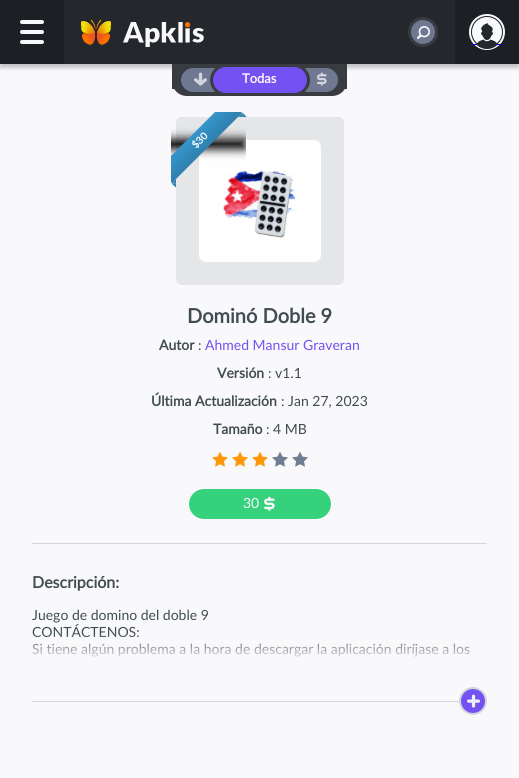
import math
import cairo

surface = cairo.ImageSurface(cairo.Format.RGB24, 519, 778)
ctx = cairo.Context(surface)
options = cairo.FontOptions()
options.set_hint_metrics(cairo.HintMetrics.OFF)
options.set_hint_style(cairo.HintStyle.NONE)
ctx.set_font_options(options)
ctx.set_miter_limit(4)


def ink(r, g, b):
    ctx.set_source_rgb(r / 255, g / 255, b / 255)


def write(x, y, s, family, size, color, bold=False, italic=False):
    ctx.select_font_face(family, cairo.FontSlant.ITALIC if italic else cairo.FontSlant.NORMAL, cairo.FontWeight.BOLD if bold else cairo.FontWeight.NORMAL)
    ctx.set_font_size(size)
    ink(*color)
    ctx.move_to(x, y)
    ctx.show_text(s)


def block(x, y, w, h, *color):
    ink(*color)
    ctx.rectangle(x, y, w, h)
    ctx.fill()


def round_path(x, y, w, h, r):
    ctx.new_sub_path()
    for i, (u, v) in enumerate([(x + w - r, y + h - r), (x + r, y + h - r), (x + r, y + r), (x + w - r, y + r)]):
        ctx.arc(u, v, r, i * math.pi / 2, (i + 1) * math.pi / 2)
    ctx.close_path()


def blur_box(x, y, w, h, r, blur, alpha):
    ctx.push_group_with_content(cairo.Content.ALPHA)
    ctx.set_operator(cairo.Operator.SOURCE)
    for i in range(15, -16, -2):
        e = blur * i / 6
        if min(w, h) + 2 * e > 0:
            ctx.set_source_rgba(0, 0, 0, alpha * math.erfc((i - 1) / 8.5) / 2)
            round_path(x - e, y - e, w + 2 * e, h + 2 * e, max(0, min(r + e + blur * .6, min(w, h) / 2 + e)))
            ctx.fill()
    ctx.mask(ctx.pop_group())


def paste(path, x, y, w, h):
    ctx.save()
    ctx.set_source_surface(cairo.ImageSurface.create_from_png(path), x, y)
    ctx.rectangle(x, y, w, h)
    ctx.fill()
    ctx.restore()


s1 = dict(family="Lato", size=13, color=(249, 249, 251), bold=True)
s2 = dict(family="Lato", size=10, color=(255, 255, 255), bold=True)
s3 = dict(family="Lato", size=20, color=(64, 76, 81), bold=True)
s4 = dict(family="Lato", size=14, color=(64, 76, 81), bold=True)
s5 = dict(family="Lato", size=14, color=(64, 76, 81))
s6 = dict(family="Lato", size=14, color=(115, 81, 242))
s7 = dict(family="Lato", size=14, color=(249, 249, 251))
s8 = dict(family="Lato", size=16, color=(64, 76, 81), bold=True)

ink(249, 249, 251)
ctx.paint()
ink(28, 31, 36)
blur_box(0, 4, 519, 64, 0, 2, 0.25)
block(64, 0, 391, 64, 36, 39, 44)
block(0, 0, 64, 64, 28, 31, 36)
ink(249, 249, 251)
round_path(20, 20, 24, 4, 2)
ctx.fill()
round_path(20, 30, 24, 4, 2)
ctx.fill()
round_path(20, 40, 24, 4, 2)
ctx.fill()
paste("pic1.png", 81, 19, 30, 26)
paste("pic2.png", 123, 22, 81, 25)
ink(111, 120, 145)
ctx.arc(423, 32, 13.5, 0, 2 * math.pi)
ctx.fill_preserve()
ink(56, 59, 64)
ctx.set_line_width(3)
ctx.stroke()
paste("pic3.png", 417, 26, 13, 13)
block(455, 0, 64, 64, 28, 31, 36)
ctx.arc(487, 32, 17, 0, 2 * math.pi)
ink(249, 249, 251)
ctx.set_line_width(2)
ctx.stroke()
ctx.arc(487, 32, 15, 0, 2 * math.pi)
ctx.fill()
block(472, 44, 30, 1, 0, 0, 238)
paste("pic4.png", 476, 23, 22, 26)
ink(56, 59, 64)
ctx.new_path()
ctx.move_to(172, 64)
ctx.line_to(347, 64)
ctx.line_to(347, 81)
ctx.curve_to(347, 89.5, 340.5, 96, 332, 96)
ctx.line_to(187, 96)
ctx.curve_to(178.5, 96, 172, 89.5, 172, 81)
ctx.close_path()
ctx.fill()
block(344, 81, 3, 8, 56, 59, 64)
block(172, 81, 3, 8, 56, 59, 64)
ink(111, 120, 145)
ctx.new_path()
ctx.move_to(193, 68)
ctx.line_to(217, 68)
ctx.line_to(217, 92)
ctx.line_to(193, 92)
ctx.curve_to(186.5, 92, 181, 86.5, 181, 80)
ctx.curve_to(181, 73.5, 186.5, 68, 193, 68)
ctx.close_path()
ctx.fill()
paste("pic5.png", 194, 72, 13, 14)
ctx.new_path()
ctx.move_to(302, 68)
ctx.line_to(326, 68)
ctx.curve_to(332.5, 68, 338, 73.5, 338, 80)
ctx.curve_to(338, 86.5, 332.5, 92, 326, 92)
ctx.line_to(302, 92)
ctx.close_path()
ctx.fill()
paste("pic6.png", 317, 72, 10, 14)
ink(115, 81, 242)
round_path(211.5, 65.5, 97, 29, 14.5)
ctx.fill_preserve()
ink(56, 59, 64)
ctx.set_line_width(3)
ctx.stroke()
write(242, 83, "Todas", **s1)
ink(228, 230, 232)
round_path(176, 117, 168, 168, 6)
ctx.fill()
paste("pic7.png", 199, 140, 122, 122)
ctx.save()
ctx.rectangle(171, 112, 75, 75)
ctx.clip()
ink(0, 0, 0)
blur_box(155, 139, 90, 10, 0, 5, 1)
ctx.restore()
ctx.save()
ctx.rectangle(171, 112, 75, 75)
ctx.clip()
gradient = cairo.LinearGradient(193, 134, 207, 148)
gradient.add_color_stop_rgba(0, 0.212, 0.584, 0.796, 1)
gradient.add_color_stop_rgba(1, 0.18, 0.502, 0.682, 1)
ctx.set_source(gradient)
ctx.new_path()
ctx.move_to(158, 169)
ctx.line_to(228, 99)
ctx.line_to(242, 113)
ctx.line_to(172, 183)
ctx.close_path()
ctx.fill()
ctx.restore()
ink(46, 128, 174)
ctx.new_path()
ctx.move_to(238, 117)
ctx.line_to(242.5, 112.5)
ctx.line_to(242.5, 117)
ctx.close_path()
ctx.fill()
ctx.new_path()
ctx.move_to(242.5, 112.5)
ctx.line_to(246.5, 117)
ctx.line_to(242.5, 117)
ctx.close_path()
ctx.fill()
ctx.save()
ctx.translate(196, 149)
ctx.rotate(-45 * math.pi / 180)
write(0, 0, "$30", **s2)
ctx.restore()
ink(46, 128, 174)
ctx.new_path()
ctx.move_to(171.5, 183.5)
ctx.line_to(176, 179)
ctx.line_to(176, 183.5)
ctx.close_path()
ctx.fill()
ctx.new_path()
ctx.move_to(176, 187.5)
ctx.line_to(171.5, 183.5)
ctx.line_to(176, 183.5)
ctx.close_path()
ctx.fill()
write(187, 323, "Dominó Doble 9", **s3)
write(159, 350, "Autor", **s4)
write(198, 350, ":", **s5)
write(205, 350, "Ahmed Mansur Graveran", **s6)
write(217, 378, "Versión", **s4)
write(268, 378, ": v1.1", **s5)
write(151, 406, "Última Actualización", **s4)
write(281, 406, ": Jan 27, 2023", **s5)
write(213, 434, "Tamaño", **s4)
write(266, 434, ": 4 MB", **s5)
paste("pic8.png", 212, 451, 16, 16)
paste("pic8.png", 232, 451, 16, 16)
paste("pic8.png", 252, 451, 16, 16)
paste("pic9.png", 272, 451, 16, 16)
paste("pic9.png", 292, 451, 16, 16)
ink(54, 209, 124)
round_path(190, 490, 140, 28, 14)
ctx.fill_preserve()
ctx.set_line_width(2)
ctx.stroke()
write(243, 508, "30", **s7)
paste("pic10.png", 264, 496, 11, 15)
block(32, 543, 455, 1, 210, 214, 220)
write(32, 588, "Descripción:", **s8)
write(32, 620, "Juego de domino del doble 9", **s5)
write(32, 637, "CONTÁCTENOS:", **s5)
write(32, 654, "Si tiene algún problema a la hora de descargar la aplicación diríjase a los", **s5)
gradient = cairo.LinearGradient(260, 633, 260, 663)
gradient.add_color_stop_rgba(0, 0.976, 0.976, 0.984, 0)
gradient.add_color_stop_rgba(1, 0.976, 0.976, 0.984, 1)
ctx.set_source(gradient)
ctx.rectangle(32, 634, 438, 23)
ctx.fill()
block(32, 701, 427, 1, 210, 214, 220)
ink(115, 81, 242)
ctx.arc(473, 701, 13, 0, 2 * math.pi)
ctx.fill_preserve()
ink(210, 214, 220)
ctx.stroke()
paste("pic11.png", 467, 694, 13, 14)
surface.write_to_png("screenshot.png")
